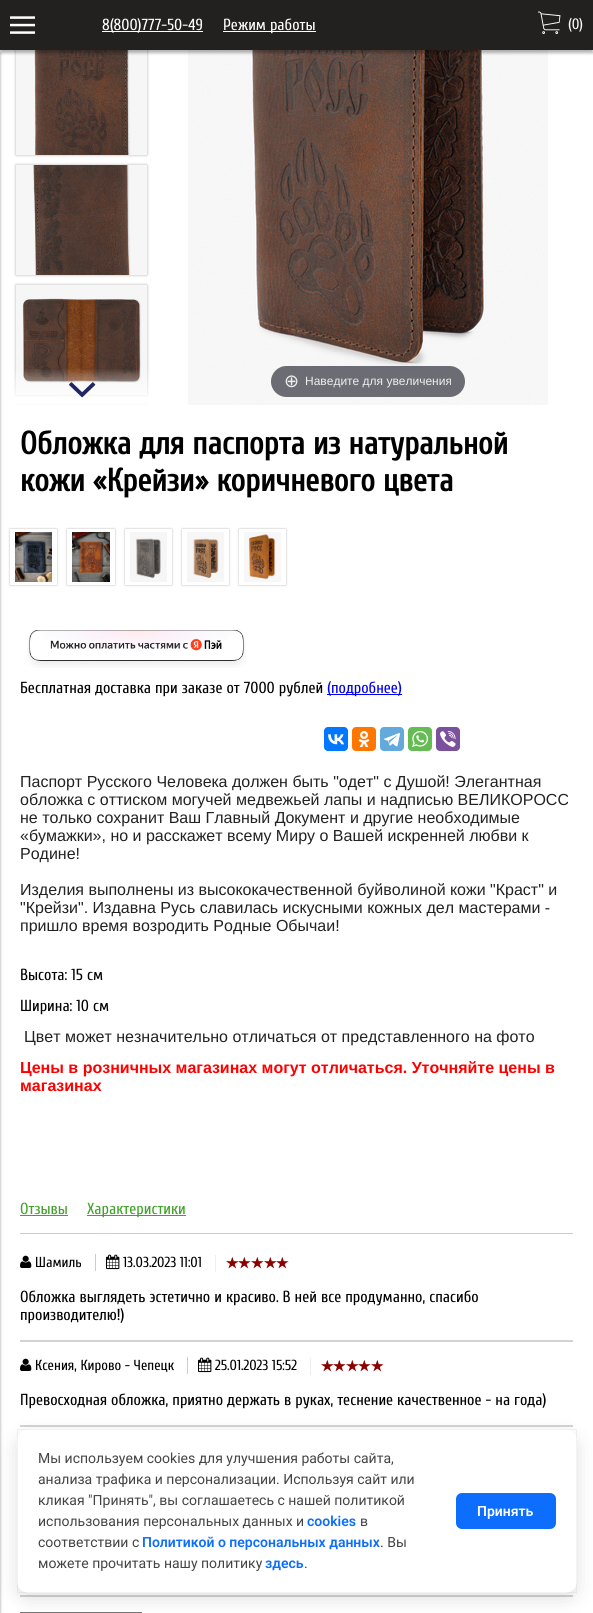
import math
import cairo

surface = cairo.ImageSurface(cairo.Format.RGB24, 593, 1613)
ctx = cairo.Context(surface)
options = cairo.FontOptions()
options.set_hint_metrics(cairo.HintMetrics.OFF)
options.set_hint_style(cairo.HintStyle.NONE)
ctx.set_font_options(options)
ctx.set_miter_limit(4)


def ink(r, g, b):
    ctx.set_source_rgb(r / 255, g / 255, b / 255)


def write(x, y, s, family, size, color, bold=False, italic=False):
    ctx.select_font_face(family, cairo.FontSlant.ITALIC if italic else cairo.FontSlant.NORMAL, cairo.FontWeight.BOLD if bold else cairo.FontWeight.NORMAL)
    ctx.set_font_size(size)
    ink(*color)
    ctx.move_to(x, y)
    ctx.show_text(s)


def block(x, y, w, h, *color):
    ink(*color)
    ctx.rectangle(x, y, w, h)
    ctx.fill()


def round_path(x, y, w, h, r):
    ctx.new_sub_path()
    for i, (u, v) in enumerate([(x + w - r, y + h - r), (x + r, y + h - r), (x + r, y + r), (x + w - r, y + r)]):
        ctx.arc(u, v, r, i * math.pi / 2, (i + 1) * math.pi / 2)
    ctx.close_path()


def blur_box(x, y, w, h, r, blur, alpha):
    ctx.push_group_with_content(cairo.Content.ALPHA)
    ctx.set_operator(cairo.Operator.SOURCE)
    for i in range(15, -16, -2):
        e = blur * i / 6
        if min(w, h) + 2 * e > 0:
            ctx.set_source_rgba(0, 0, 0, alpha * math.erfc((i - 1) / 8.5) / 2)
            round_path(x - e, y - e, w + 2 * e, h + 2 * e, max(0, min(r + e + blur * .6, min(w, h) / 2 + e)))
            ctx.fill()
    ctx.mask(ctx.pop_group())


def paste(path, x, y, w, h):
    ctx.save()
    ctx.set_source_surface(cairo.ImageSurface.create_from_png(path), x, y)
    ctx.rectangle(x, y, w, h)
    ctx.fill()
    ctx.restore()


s1 = dict(family="Cuprum", size=16, color=(255, 255, 255))
s2 = dict(family="Cuprum", size=15, color=(255, 255, 255))
s3 = dict(family="DejaVu Sans", size=18, color=(238, 238, 238))
s4 = dict(family="Liberation Sans", size=12, color=(238, 238, 238))
s5 = dict(family="Cuprum", size=32, color=(0, 0, 0), bold=True)
s6 = dict(family="Cuprum", size=16, color=(0, 0, 0))
s7 = dict(family="Cuprum", size=16, color=(0, 0, 238))
s8 = dict(family="Liberation Sans", size=16, color=(34, 34, 34))
s9 = dict(family="Liberation Sans", size=16, color=(255, 0, 0), bold=True)
s10 = dict(family="Cuprum", size=16, color=(67, 161, 44))
s11 = dict(family="Cuprum", size=14.5, color=(0, 0, 0))
s12 = dict(family="Roboto", size=14, color=(68, 68, 68))
s13 = dict(family="Roboto SemiBold", size=14, color=(13, 110, 253))
s14 = dict(family="Roboto SemiBold", size=14, color=(255, 255, 255))

ink(255, 255, 255)
ctx.paint()
ink(0, 0, 0)
blur_box(16, 45, 131, 110, 0, 1.5, 0.3)
paste("pic3.png", 16, 50, 131, 105)
paste("pic7.png", 188, 50, 360, 355)
blur_box(0, 3, 593, 50, 0, 1.5, 0.3)
block(0, 0, 593, 50, 34, 33, 32)
paste("pic1.png", 10, 16, 25, 18)
block(102, 31, 101, 1, 255, 255, 255)
write(102, 30, "8(800)777-50-49", **s1)
block(223, 31, 93, 1, 255, 255, 255)
write(223, 30, "Режим работы", **s1)
paste("pic2.png", 538, 11, 23, 23)
write(568, 29, "(0)", **s2)
ink(0, 0, 0)
blur_box(-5, 53, 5, 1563, 0, 1.5, 0.4)
blur_box(16, 165, 131, 110, 0, 1.5, 0.3)
paste("pic4.png", 16, 165, 131, 110)
blur_box(16, 285, 131, 110, 0, 1.5, 0.3)
paste("pic5.png", 16, 285, 131, 110)
ctx.save()
ctx.rectangle(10, 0, 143, 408)
ctx.clip()
blur_box(16, 405, 131, 110, 0, 1.5, 0.3)
ctx.restore()
block(16, 405, 131, 3, 246, 246, 246)
gradient = cairo.LinearGradient(82, 364, 82, 408)
gradient.add_color_stop_rgba(0.1, 1, 1, 1, 0)
gradient.add_color_stop_rgba(1, 1, 1, 1, 1)
ctx.set_source(gradient)
ctx.rectangle(13, 369, 137, 39)
ctx.fill()
paste("pic6.png", 69, 382, 27, 16)
ctx.set_source_rgba(0.192, 0.2, 0.239, 0.7)
round_path(271, 366, 194, 31, 15.5)
ctx.fill()
write(284, 387, "⊕", **s3)
write(305, 385, "Наведите для увеличения", **s4)
write(20, 454, "Обложка для паспорта из натуральной", **s5)
write(20, 491, "кожи «Крейзи» коричневого цвета", **s5)
ctx.save()
ctx.set_fill_rule(cairo.FillRule.EVEN_ODD)
ctx.new_path()
ctx.move_to(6, 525)
ctx.line_to(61, 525)
ctx.line_to(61, 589)
ctx.line_to(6, 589)
ctx.close_path()
ctx.move_to(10, 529)
ctx.line_to(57, 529)
ctx.line_to(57, 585)
ctx.line_to(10, 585)
ctx.close_path()
ctx.clip()
ink(0, 0, 0)
blur_box(10, 529, 47, 56, 0, 1, 0.3)
ctx.restore()
paste("pic8.png", 15, 532, 37, 50)
ctx.save()
ctx.set_fill_rule(cairo.FillRule.EVEN_ODD)
ctx.new_path()
ctx.move_to(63, 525)
ctx.line_to(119, 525)
ctx.line_to(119, 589)
ctx.line_to(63, 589)
ctx.close_path()
ctx.move_to(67, 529)
ctx.line_to(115, 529)
ctx.line_to(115, 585)
ctx.line_to(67, 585)
ctx.close_path()
ctx.clip()
ink(0, 0, 0)
blur_box(67, 529, 48, 56, 0, 1, 0.3)
ctx.restore()
paste("pic9.png", 72, 532, 38, 50)
ctx.save()
ctx.set_fill_rule(cairo.FillRule.EVEN_ODD)
ctx.new_path()
ctx.move_to(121, 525)
ctx.line_to(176, 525)
ctx.line_to(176, 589)
ctx.line_to(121, 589)
ctx.close_path()
ctx.move_to(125, 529)
ctx.line_to(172, 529)
ctx.line_to(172, 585)
ctx.line_to(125, 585)
ctx.close_path()
ctx.clip()
ink(0, 0, 0)
blur_box(125, 529, 47, 56, 0, 1, 0.3)
ctx.restore()
paste("pic10.png", 130, 532, 37, 50)
ctx.save()
ctx.set_fill_rule(cairo.FillRule.EVEN_ODD)
ctx.new_path()
ctx.move_to(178, 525)
ctx.line_to(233, 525)
ctx.line_to(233, 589)
ctx.line_to(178, 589)
ctx.close_path()
ctx.move_to(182, 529)
ctx.line_to(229, 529)
ctx.line_to(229, 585)
ctx.line_to(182, 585)
ctx.close_path()
ctx.clip()
ink(0, 0, 0)
blur_box(182, 529, 47, 56, 0, 1, 0.3)
ctx.restore()
paste("pic11.png", 187, 532, 37, 50)
ctx.save()
ctx.set_fill_rule(cairo.FillRule.EVEN_ODD)
ctx.new_path()
ctx.move_to(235, 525)
ctx.line_to(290, 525)
ctx.line_to(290, 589)
ctx.line_to(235, 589)
ctx.close_path()
ctx.move_to(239, 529)
ctx.line_to(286, 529)
ctx.line_to(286, 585)
ctx.line_to(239, 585)
ctx.close_path()
ctx.clip()
ink(0, 0, 0)
blur_box(239, 529, 47, 56, 0, 1, 0.3)
ctx.restore()
paste("pic12.png", 244, 532, 37, 50)
paste("pic13.png", 27, 630, 219, 38)
write(20, 693, "Бесплатная доставка при заказе от 7000 рублей", **s6)
block(327, 694, 75, 1, 0, 0, 238)
write(327, 693, "(подробнее)", **s7)
ink(0, 119, 255)
round_path(324, 727, 24, 24, 4)
ctx.fill()
paste("pic14.png", 328, 734, 16, 11)
ink(255, 119, 0)
round_path(352, 727, 24, 24, 4)
ctx.fill()
paste("pic15.png", 358, 731, 12, 16)
ink(100, 169, 220)
round_path(380, 727, 24, 24, 4)
ctx.fill()
paste("pic16.png", 384, 733, 16, 14)
ink(101, 188, 84)
round_path(408, 727, 24, 24, 4)
ctx.fill()
paste("pic17.png", 412, 731, 16, 16)
ink(123, 81, 157)
round_path(436, 727, 24, 24, 4)
ctx.fill()
paste("pic18.png", 440, 731, 16, 16)
write(20, 787, "Паспорт Русского Человека должен быть \"одет\" с Душой! Элегантная", **s8)
write(20, 805, "обложка с оттиском могучей медвежьей лапы и надписью ВЕЛИКОРОСС", **s8)
write(20, 823, "не только сохранит Ваш Главный Документ и другие необходимые", **s8)
write(20, 841, "«бумажки», но и расскажет всему Миру о Вашей искренней любви к", **s8)
write(20, 859, "Родине!", **s8)
write(20, 895, "Изделия выполнены из высококачественной буйволиной кожи \"Краст\" и", **s8)
write(20, 913, "\"Крейзи\". Издавна Русь славилась искусными кожных дел мастерами -", **s8)
write(20, 931, "пришло время возродить Родные Обычаи!", **s8)
write(20, 980, "Высота: 15 см", **s6)
write(20, 1011, "Ширина: 10 см", **s6)
write(24, 1042, "Цвет может незначительно отличаться от представленного на фото", **s8)
write(20, 1073, "Цены в розничных магазинах могут отличаться. Уточняйте цены в", **s9)
write(20, 1091, "магазинах", **s9)
block(20, 1233, 553, 1, 246, 219, 14)
write(20, 1214, "Отзывы", **s10)
block(20, 1215, 48, 1, 67, 161, 44)
block(87, 1215, 99, 1, 67, 161, 44)
write(87, 1214, "Характеристики", **s10)
block(20, 1340, 553, 2, 211, 211, 211)
paste("pic19.png", 20, 1255, 12, 13)
write(35, 1267, "Шамиль", **s11)
block(95, 1254, 1, 17, 246, 219, 14)
paste("pic20.png", 106, 1254, 14, 16)
write(123, 1267, "13.03.2023 11:01", **s11)
block(215, 1255, 1, 17, 238, 238, 238)
paste("pic21.png", 226, 1257, 12, 12)
paste("pic22.png", 238, 1257, 13, 12)
paste("pic22.png", 251, 1257, 13, 12)
paste("pic21.png", 264, 1257, 12, 12)
paste("pic22.png", 276, 1257, 13, 12)
write(20, 1302, "Обложка выглядеть эстетично и красиво. В ней все продуманно, спасибо", **s6)
write(20, 1320, "производителю!)", **s6)
block(20, 1425, 553, 2, 211, 211, 211)
paste("pic19.png", 20, 1358, 12, 13)
write(35, 1370, "Ксения, Кирово - Чепецк", **s11)
block(187, 1357, 1, 17, 246, 219, 14)
paste("pic20.png", 198, 1357, 14, 16)
write(215, 1370, "25.01.2023 15:52", **s11)
block(310, 1358, 1, 17, 238, 238, 238)
paste("pic21.png", 321, 1360, 12, 12)
paste("pic22.png", 333, 1360, 13, 12)
paste("pic21.png", 346, 1360, 12, 12)
paste("pic22.png", 358, 1360, 13, 12)
paste("pic21.png", 371, 1360, 12, 12)
write(20, 1405, "Превосходная обложка, приятно держать в руках, теснение качественное - на года)", **s6)
block(20, 1595, 553, 2, 211, 211, 211)
ctx.rectangle(20.5, 1612.5, 121, 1)
ink(119, 119, 119)
ctx.set_line_width(1)
ctx.stroke()
ink(0, 0, 0)
blur_box(17, 1435, 560, 164, 12, 10, 0.12)
ink(255, 255, 255)
round_path(17, 1429, 560, 164, 12)
ctx.fill()
ctx.rectangle(17.5, 1429.5, 559, 163)
ctx.set_source_rgba(0, 0, 0, 0.05)
ctx.stroke()
write(38, 1463, "Мы используем cookies для улучшения работы сайта,", **s12)
write(38, 1484, "анализа трафика и персонализации. Используя сайт или", **s12)
write(38, 1505, "кликая \"Принять\", вы соглашаетесь с нашей политикой", **s12)
write(38, 1526, "использования персональных данных и", **s12)
write(307, 1526, "cookies", **s13)
write(360, 1526, "в", **s12)
write(38, 1547, "соответствии с", **s12)
write(142, 1547, "Политикой о персональных данных", **s13)
write(380, 1547, ". Вы", **s12)
write(38, 1568, "можете прочитать нашу политику", **s12)
write(265, 1568, "здесь", **s13)
write(304, 1568, ".", **s12)
ink(13, 110, 253)
round_path(456, 1493, 100, 36, 6)
ctx.fill()
write(477, 1516, "Принять", **s14)
surface.write_to_png("screenshot.png")
